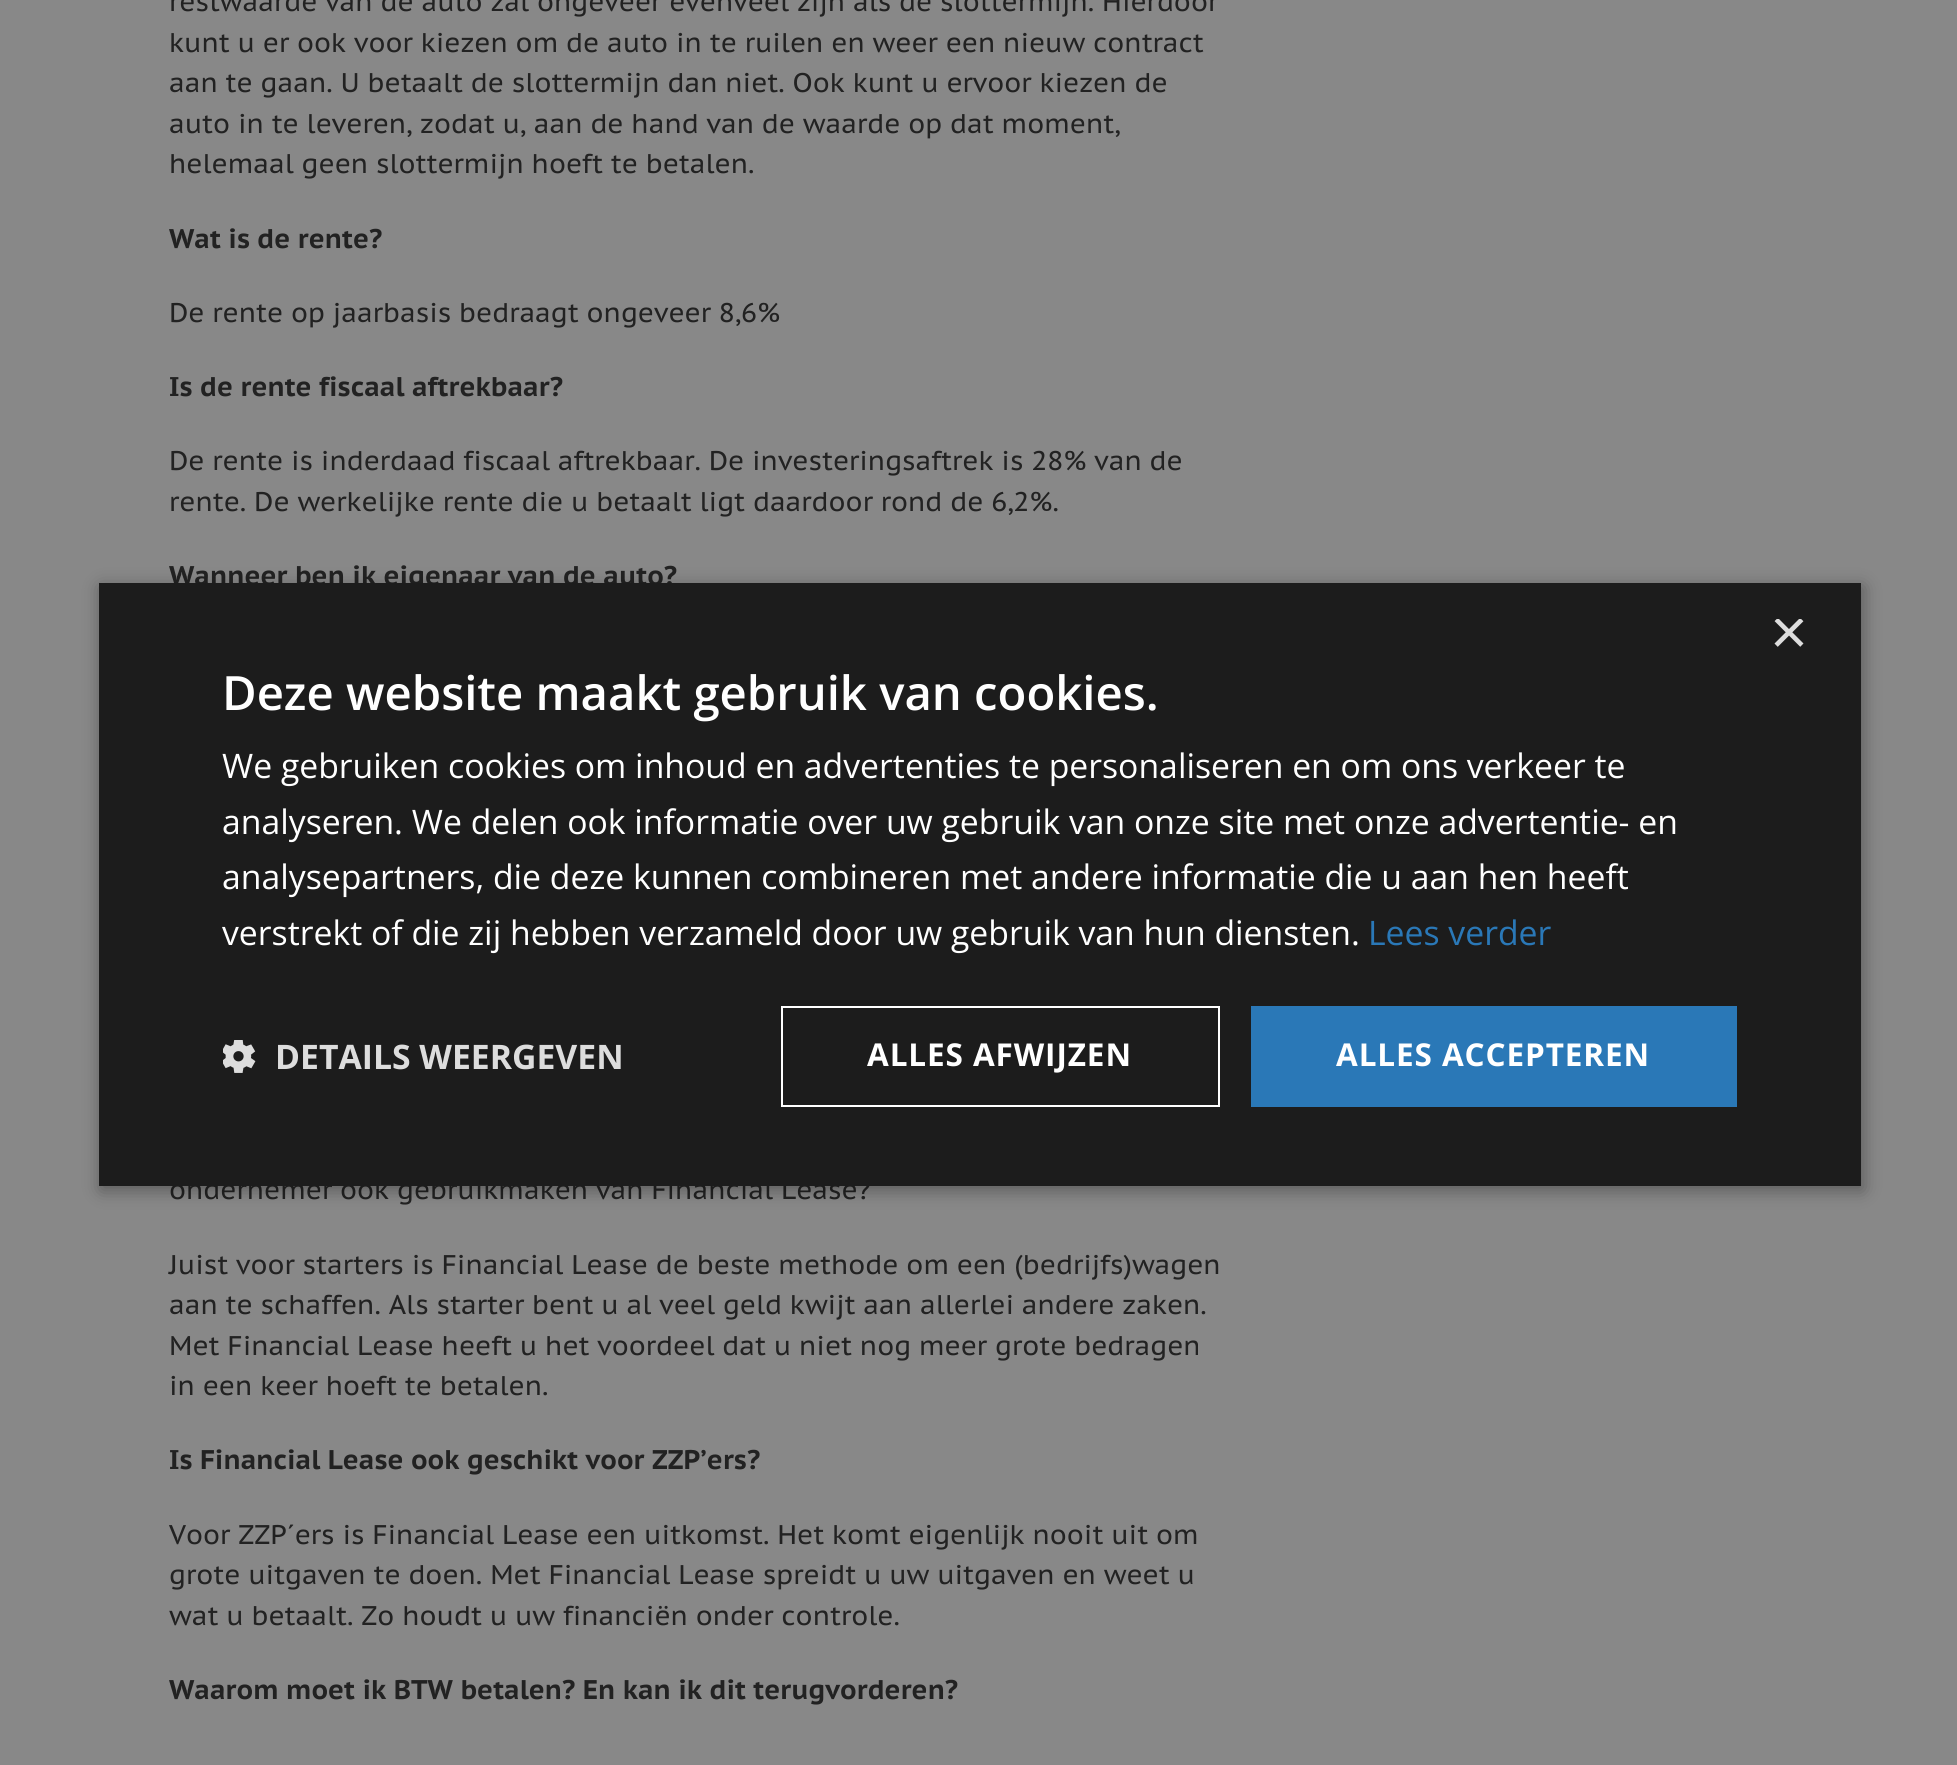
import math
import cairo

surface = cairo.ImageSurface(cairo.Format.RGB24, 1957, 1765)
ctx = cairo.Context(surface)
options = cairo.FontOptions()
options.set_hint_metrics(cairo.HintMetrics.OFF)
options.set_hint_style(cairo.HintStyle.NONE)
ctx.set_font_options(options)
ctx.set_miter_limit(4)


def ink(r, g, b):
    ctx.set_source_rgb(r / 255, g / 255, b / 255)


def write(x, y, s, family, size, color, bold=False, italic=False):
    ctx.select_font_face(family, cairo.FontSlant.ITALIC if italic else cairo.FontSlant.NORMAL, cairo.FontWeight.BOLD if bold else cairo.FontWeight.NORMAL)
    ctx.set_font_size(size)
    ink(*color)
    ctx.move_to(x, y)
    ctx.show_text(s)


def write_spaced(x, y, s, letter, word):
    ctx.move_to(x, y)
    for ch in s:
        ctx.show_text(ch)
        ctx.rel_move_to(letter + word * (ch == ' '), 0)


def block(x, y, w, h, *color):
    ink(*color)
    ctx.rectangle(x, y, w, h)
    ctx.fill()


def round_path(x, y, w, h, r):
    ctx.new_sub_path()
    for i, (u, v) in enumerate([(x + w - r, y + h - r), (x + r, y + h - r), (x + r, y + r), (x + w - r, y + r)]):
        ctx.arc(u, v, r, i * math.pi / 2, (i + 1) * math.pi / 2)
    ctx.close_path()


def blur_box(x, y, w, h, r, blur, alpha):
    ctx.push_group_with_content(cairo.Content.ALPHA)
    ctx.set_operator(cairo.Operator.SOURCE)
    for i in range(15, -16, -2):
        e = blur * i / 6
        if min(w, h) + 2 * e > 0:
            ctx.set_source_rgba(0, 0, 0, alpha * math.erfc((i - 1) / 8.5) / 2)
            round_path(x - e, y - e, w + 2 * e, h + 2 * e, max(0, min(r + e + blur * .6, min(w, h) / 2 + e)))
            ctx.fill()
    ctx.mask(ctx.pop_group())


def paste(path, x, y, w, h):
    ctx.save()
    ctx.set_source_surface(cairo.ImageSurface.create_from_png(path), x, y)
    ctx.rectangle(x, y, w, h)
    ctx.fill()
    ctx.restore()


s1 = dict(family="PT Sans Caption", size=27, color=(34, 34, 34))
s2 = dict(family="PT Sans Caption", size=27, color=(34, 34, 34), bold=True)
s3 = dict(family="Liberation Sans", size=65, color=(221, 221, 221))
s4 = dict(family="Open Sans SemiBold", size=47.25, color=(255, 255, 255))
s5 = dict(family="Open Sans", size=33.75, color=(255, 255, 255))
s6 = dict(family="Open Sans", size=33.75, color=(42, 120, 183))
s7 = dict(family="Open Sans", size=33.75, color=(221, 221, 221), bold=True)

ink(136, 136, 136)
ctx.paint()
write(169, 11, "restwaarde van de auto zal ongeveer evenveel zijn als de slottermijn. Hierdoor", **s1)
write(169, 52, "kunt u er ook voor kiezen om de auto in te ruilen en weer een nieuw contract", **s1)
write(169, 92, "aan te gaan. U betaalt de slottermijn dan niet. Ook kunt u ervoor kiezen de", **s1)
write(169, 133, "auto in te leveren, zodat u, aan de hand van de waarde op dat moment,", **s1)
write(169, 173, "helemaal geen slottermijn hoeft te betalen.", **s1)
write(169, 248, "Wat is de rente?", **s2)
write(169, 322, "De rente op jaarbasis bedraagt ongeveer 8,6%", **s1)
write(169, 396, "Is de rente fiscaal aftrekbaar?", **s2)
write(169, 470, "De rente is inderdaad fiscaal aftrekbaar. De investeringsaftrek is 28% van de", **s1)
write(169, 511, "rente. De werkelijke rente die u betaalt ligt daardoor rond de 6,2%.", **s1)
write(169, 585, "Wanneer ben ik eigenaar van de auto?", **s2)
write(169, 1199, "ondernemer ook gebruikmaken van Financial Lease?", **s1)
write(169, 1274, "Juist voor starters is Financial Lease de beste methode om een (bedrijfs)wagen", **s1)
write(169, 1314, "aan te schaffen. Als starter bent u al veel geld kwijt aan allerlei andere zaken.", **s1)
write(169, 1355, "Met Financial Lease heeft u het voordeel dat u niet nog meer grote bedragen", **s1)
write(169, 1395, "in een keer hoeft te betalen.", **s1)
write(169, 1469, "Is Financial Lease ook geschikt voor ZZP’ers?", **s2)
write(169, 1544, "Voor ZZP´ers is Financial Lease een uitkomst. Het komt eigenlijk nooit uit om", **s1)
write(169, 1584, "grote uitgaven te doen. Met Financial Lease spreidt u uw uitgaven en weet u", **s1)
write(169, 1625, "wat u betaalt. Zo houdt u uw financiën onder controle.", **s1)
write(169, 1699, "Waarom moet ik BTW betalen? En kan ik dit terugvorderen?", **s2)
ink(0, 0, 0)
blur_box(101, 587, 1762, 603, 0, 9, 0.35)
block(99, 583, 1762, 603, 28, 28, 28)
ctx.save()
ctx.rectangle(1771, 619, 34, 34)
ctx.clip()
write(1770, 654, "×", **s3)
ctx.restore()
write(222, 710, "Deze website maakt gebruik van cookies.", **s4)
write(222, 778, "We gebruiken cookies om inhoud en advertenties te personaliseren en om ons verkeer te", **s5)
write(222, 834, "analyseren. We delen ook informatie over uw gebruik van onze site met onze advertentie- en", **s5)
write(222, 889, "analysepartners, die deze kunnen combineren met andere informatie die u aan hen heeft", **s5)
write(222, 945, "verstrekt of die zij hebben verzameld door uw gebruik van hun diensten.", **s5)
write(1368, 945, "Lees verder", **s6)
paste("pic1.png", 223, 1040, 33, 33)
write(275, 1069, "DETAILS WEERGEVEN", **s7)
ctx.rectangle(782, 1007, 437, 99)
ink(255, 255, 255)
ctx.stroke()
ctx.set_font_size(31.5)
write_spaced(867, 1066, "ALLES AFWIJZEN", 0.9, 0)
block(1251, 1006, 486, 101, 42, 120, 183)
ink(255, 255, 255)
write_spaced(1336, 1066, "ALLES ACCEPTEREN", 0.9, 0)
surface.write_to_png("screenshot.png")
